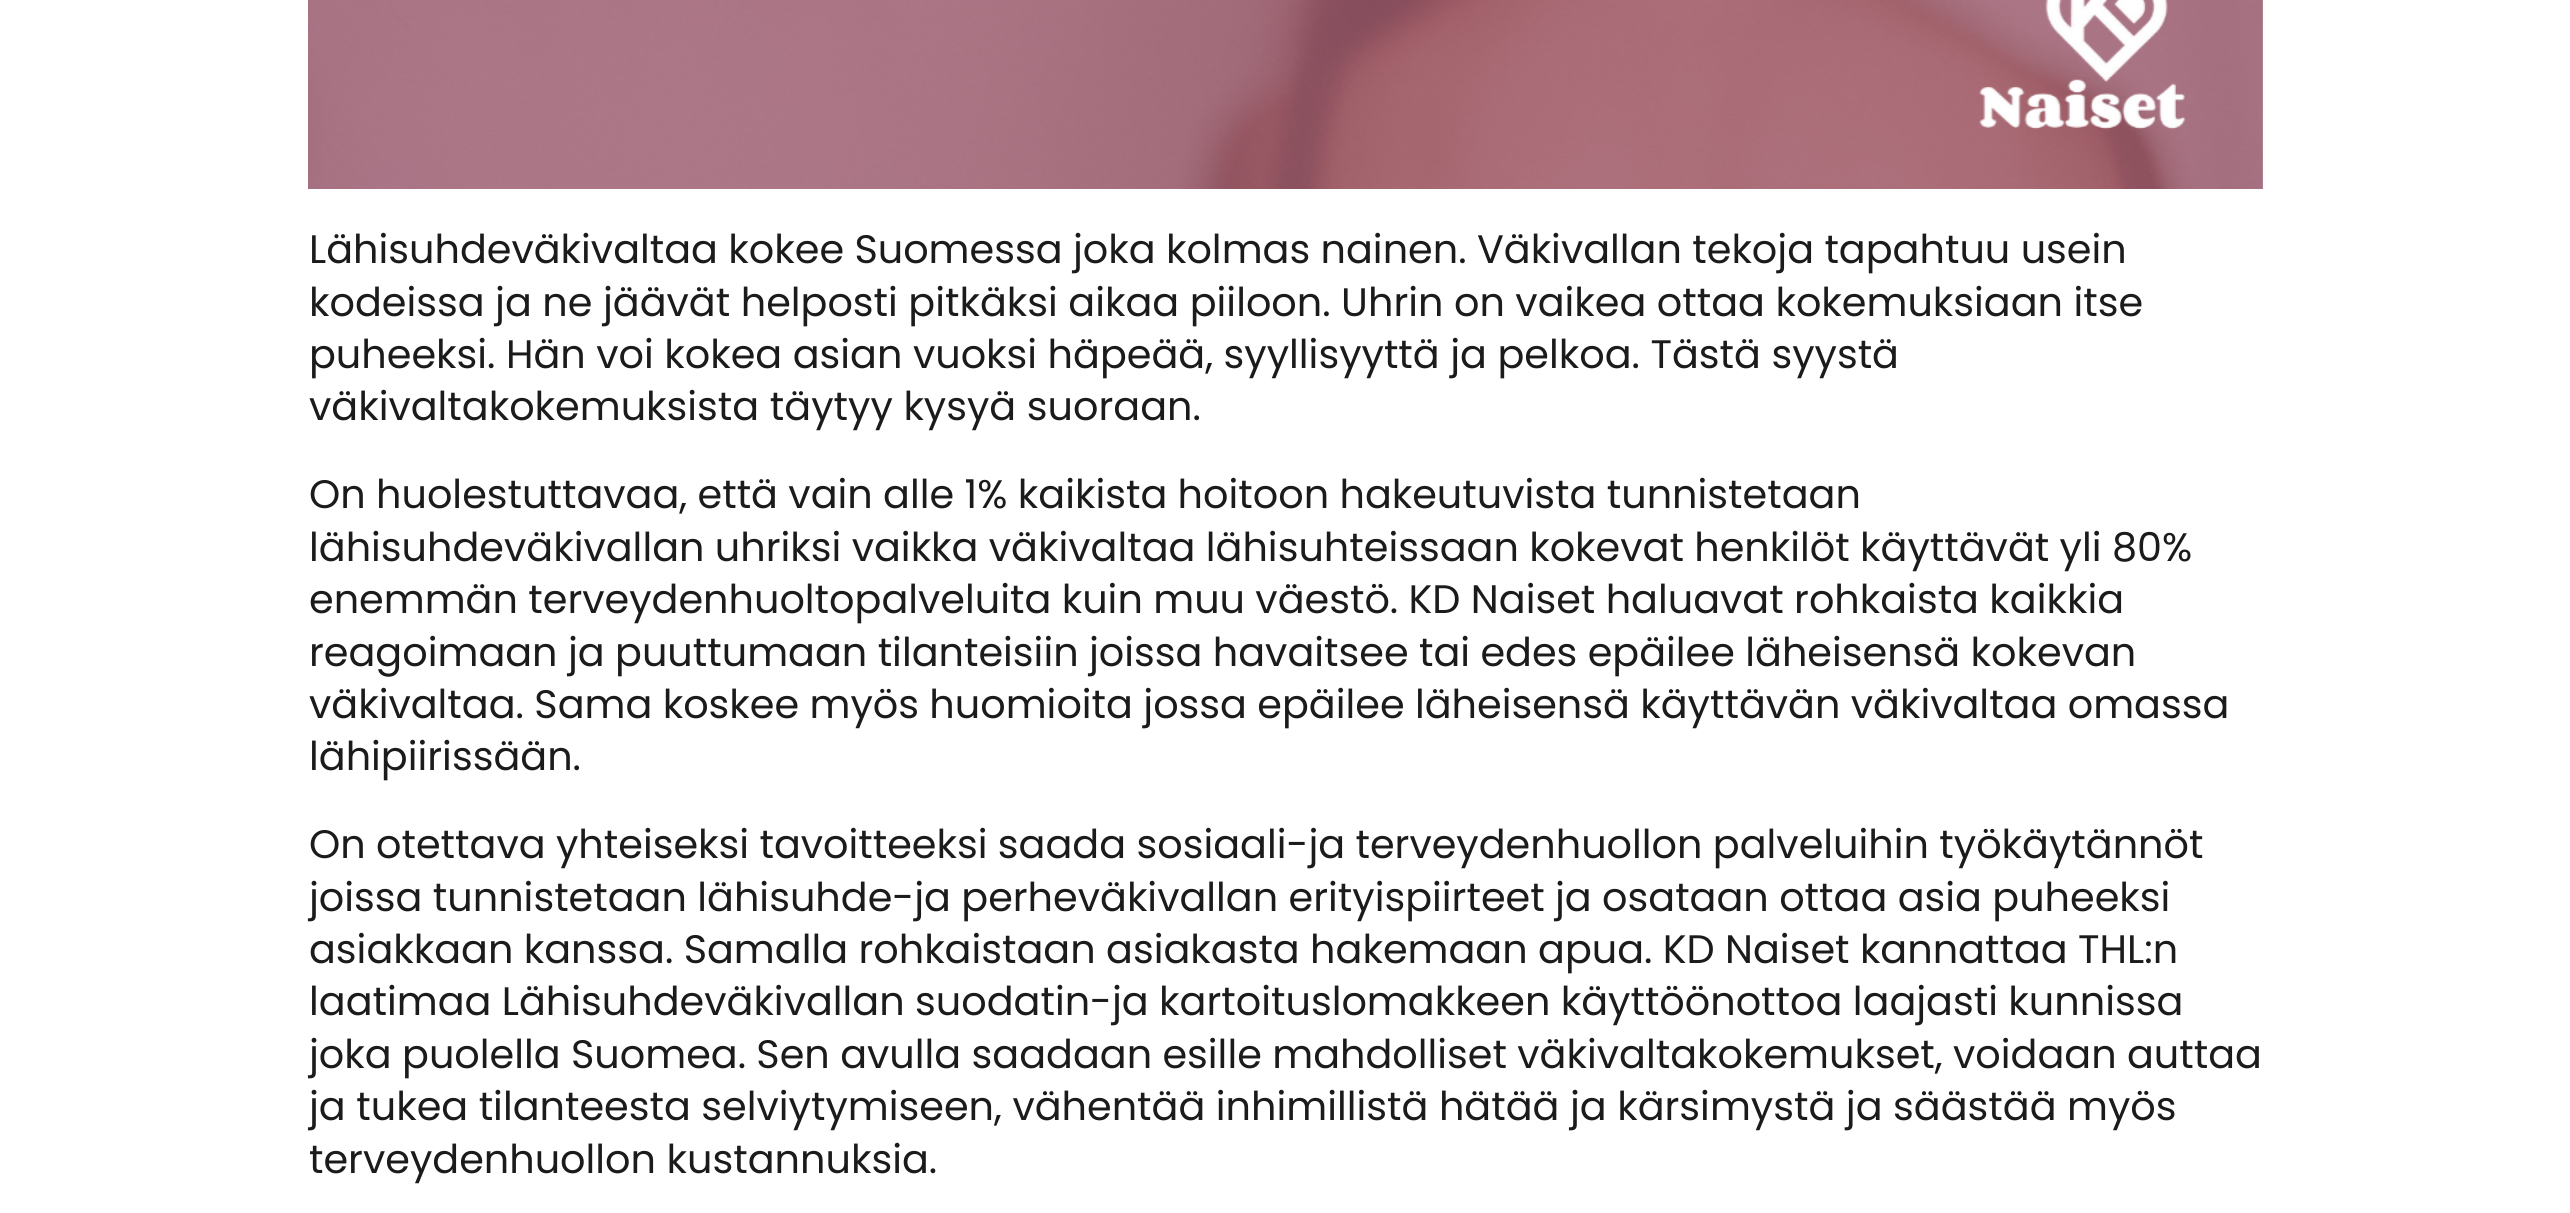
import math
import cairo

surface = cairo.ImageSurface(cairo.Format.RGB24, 2570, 1213)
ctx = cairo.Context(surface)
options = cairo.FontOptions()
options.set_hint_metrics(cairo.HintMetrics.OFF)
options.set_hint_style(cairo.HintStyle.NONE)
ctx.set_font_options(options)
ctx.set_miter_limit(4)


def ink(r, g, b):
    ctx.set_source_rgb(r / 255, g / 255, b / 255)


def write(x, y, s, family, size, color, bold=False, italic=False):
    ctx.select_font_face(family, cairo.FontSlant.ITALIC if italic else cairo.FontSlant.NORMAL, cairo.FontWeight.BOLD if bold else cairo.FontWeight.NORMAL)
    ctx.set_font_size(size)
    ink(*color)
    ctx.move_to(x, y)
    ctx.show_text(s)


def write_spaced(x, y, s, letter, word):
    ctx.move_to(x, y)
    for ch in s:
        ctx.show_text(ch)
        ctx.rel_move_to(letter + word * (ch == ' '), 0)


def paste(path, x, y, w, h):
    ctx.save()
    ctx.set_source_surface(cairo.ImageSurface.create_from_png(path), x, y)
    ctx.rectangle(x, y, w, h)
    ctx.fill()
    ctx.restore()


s1 = dict(family="Poppins", size=39.75, color=(27, 27, 27))

ink(255, 255, 255)
ctx.paint()
paste("pic1.png", 308, 0, 1955, 189)
ctx.select_font_face("Poppins")
ctx.set_font_size(39.75)
ink(27, 27, 27)
write_spaced(309, 263, "Lähisuhdeväkivaltaa kokee Suomessa joka kolmas nainen. Väkivallan tekoja tapahtuu usein", 0, -0.25)
write_spaced(309, 316, "kodeissa ja ne jäävät helposti pitkäksi aikaa piiloon. Uhrin on vaikea ottaa kokemuksiaan itse", 0, -0.1)
write_spaced(309, 368, "puheeksi. Hän voi kokea asian vuoksi häpeää, syyllisyyttä ja pelkoa. Tästä syystä", 0, -0.1)
write(309, 420, "väkivaltakokemuksista täytyy kysyä suoraan.", **s1)
write_spaced(309, 508, "On huolestuttavaa, että vain alle 1% kaikista hoitoon hakeutuvista tunnistetaan", 0, -0.25)
write_spaced(309, 561, "lähisuhdeväkivallan uhriksi vaikka väkivaltaa lähisuhteissaan kokevat henkilöt käyttävät yli 80%", 0, -0.25)
write_spaced(309, 613, "enemmän terveydenhuoltopalveluita kuin muu väestö. KD Naiset haluavat rohkaista kaikkia", 0, -0.25)
write_spaced(309, 666, "reagoimaan ja puuttumaan tilanteisiin joissa havaitsee tai edes epäilee läheisensä kokevan", 0, -0.25)
write_spaced(309, 718, "väkivaltaa. Sama koskee myös huomioita jossa epäilee läheisensä käyttävän väkivaltaa omassa", 0, -0.25)
write(309, 770, "lähipiirissään.", **s1)
write_spaced(309, 858, "On otettava yhteiseksi tavoitteeksi saada sosiaali-ja terveydenhuollon palveluihin työkäytännöt", 0, -0.25)
write_spaced(309, 911, "joissa tunnistetaan lähisuhde-ja perheväkivallan erityispiirteet ja osataan ottaa asia puheeksi", 0, -0.25)
write_spaced(309, 963, "asiakkaan kanssa. Samalla rohkaistaan asiakasta hakemaan apua. KD Naiset kannattaa THL:n", 0, -0.25)
write_spaced(309, 1015, "laatimaa Lähisuhdeväkivallan suodatin-ja kartoituslomakkeen käyttöönottoa laajasti kunnissa", 0, -0.25)
write_spaced(309, 1068, "joka puolella Suomea. Sen avulla saadaan esille mahdolliset väkivaltakokemukset, voidaan auttaa", 0, -0.25)
write_spaced(309, 1120, "ja tukea tilanteesta selviytymiseen, vähentää inhimillistä hätää ja kärsimystä ja säästää myös", 0, -0.1)
write(309, 1173, "terveydenhuollon kustannuksia.", **s1)
surface.write_to_png("screenshot.png")
